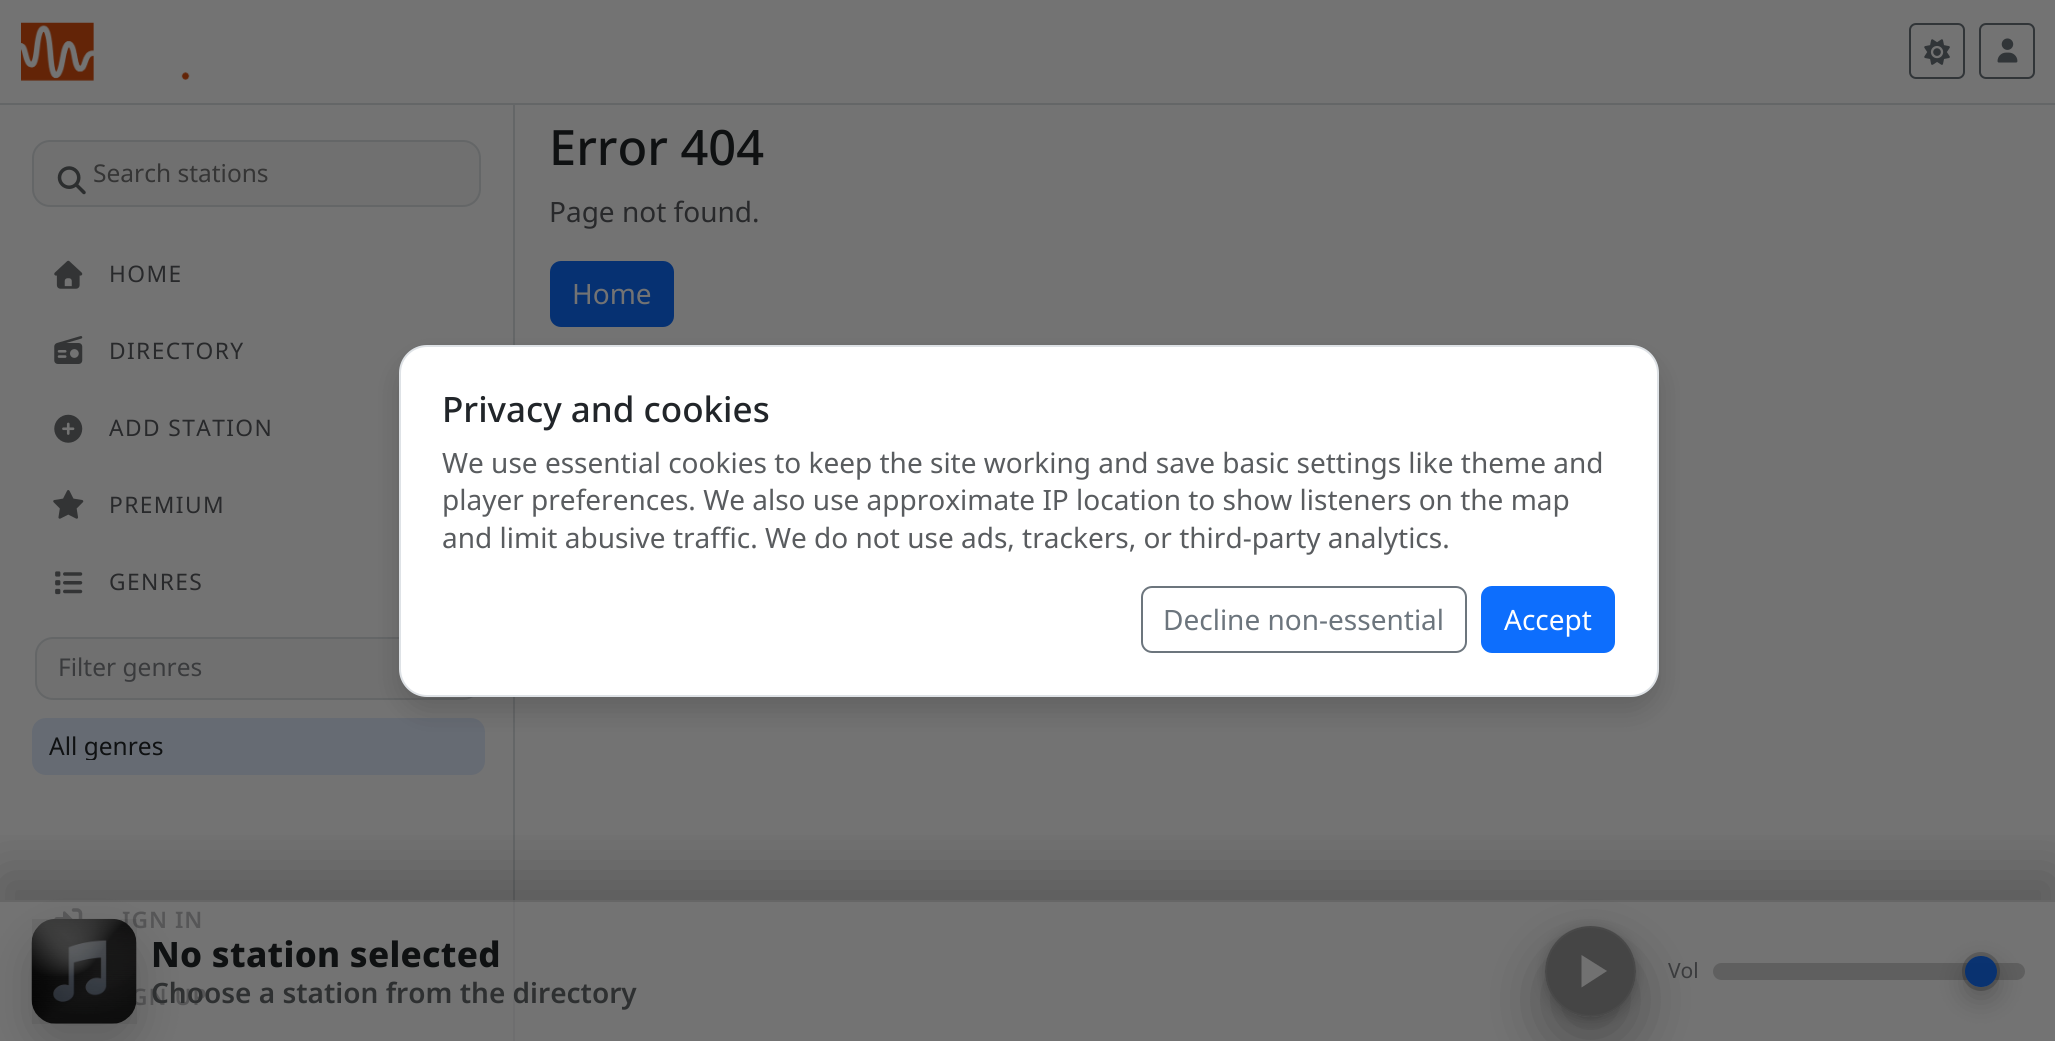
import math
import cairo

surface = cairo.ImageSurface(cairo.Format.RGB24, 2055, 1041)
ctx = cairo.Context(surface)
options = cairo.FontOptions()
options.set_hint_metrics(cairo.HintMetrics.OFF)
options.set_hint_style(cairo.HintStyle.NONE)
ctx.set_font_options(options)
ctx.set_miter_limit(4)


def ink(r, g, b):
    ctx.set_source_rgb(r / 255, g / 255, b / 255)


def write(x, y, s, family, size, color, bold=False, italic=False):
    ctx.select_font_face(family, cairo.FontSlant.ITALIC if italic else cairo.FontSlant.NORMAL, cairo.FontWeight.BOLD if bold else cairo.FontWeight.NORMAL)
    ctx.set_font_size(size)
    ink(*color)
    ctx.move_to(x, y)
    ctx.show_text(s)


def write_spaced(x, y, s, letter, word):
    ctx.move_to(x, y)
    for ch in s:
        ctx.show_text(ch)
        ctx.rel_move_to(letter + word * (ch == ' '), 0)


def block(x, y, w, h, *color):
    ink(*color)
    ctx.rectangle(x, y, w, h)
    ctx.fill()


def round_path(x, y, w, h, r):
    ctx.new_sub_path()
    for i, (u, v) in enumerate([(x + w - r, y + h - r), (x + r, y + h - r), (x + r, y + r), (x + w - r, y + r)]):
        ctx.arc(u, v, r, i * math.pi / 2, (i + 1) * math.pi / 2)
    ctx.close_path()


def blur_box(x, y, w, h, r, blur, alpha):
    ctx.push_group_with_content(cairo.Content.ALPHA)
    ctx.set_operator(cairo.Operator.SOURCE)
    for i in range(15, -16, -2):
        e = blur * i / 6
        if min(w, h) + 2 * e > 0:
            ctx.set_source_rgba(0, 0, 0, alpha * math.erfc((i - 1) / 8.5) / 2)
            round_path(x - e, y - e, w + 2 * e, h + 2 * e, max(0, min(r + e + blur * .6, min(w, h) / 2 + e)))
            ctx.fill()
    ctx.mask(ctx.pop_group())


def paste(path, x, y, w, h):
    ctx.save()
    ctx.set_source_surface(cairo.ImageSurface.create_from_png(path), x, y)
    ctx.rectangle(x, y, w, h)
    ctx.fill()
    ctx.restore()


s1 = dict(family="Noto Sans", size=24.5, color=(53, 53, 53))
s2 = dict(family="Noto Sans", size=24.5, color=(58, 59, 61))
s3 = dict(family="Noto Sans", size=24.5, color=(15, 17, 18))
s4 = dict(family="Noto Sans Medium", size=48.75, color=(15, 17, 18))
s5 = dict(family="Noto Sans", size=28, color=(40, 41, 43))
s6 = dict(family="Noto Sans", size=28, color=(115, 115, 115))
s7 = dict(family="Noto Sans Medium", size=35, color=(33, 37, 41))
s8 = dict(family="Noto Sans", size=28, color=(89, 92, 95))
s9 = dict(family="Noto Sans", size=28, color=(108, 117, 125))
s10 = dict(family="Noto Sans", size=28, color=(255, 255, 255))
s11 = dict(family="Noto Sans SemiBold", size=28, color=(46, 48, 49))
s12 = dict(family="Noto Sans", size=21, color=(58, 59, 61))

ink(115, 115, 115)
ctx.paint()
block(0, 900, 2055, 2, 102, 102, 102)
block(0, 103, 2055, 2, 100, 102, 103)
paste("pic1.png", 21, 22, 169, 59)
round_path(1910, 24, 54, 54, 6)
ink(49, 53, 56)
ctx.stroke()
paste("pic2.png", 1924, 39, 26, 26)
round_path(1980, 24, 54, 54, 6)
ctx.stroke()
paste("pic3.png", 1997, 38, 21, 25)
block(513, 105, 2, 795, 100, 102, 103)
block(513, 900, 2, 141, 110, 110, 111)
block(513, 900, 2, 2, 98, 99, 99)
ink(112, 112, 112)
round_path(33, 141, 447, 65, 17)
ctx.fill_preserve()
ink(100, 102, 103)
ctx.stroke()
paste("pic4.png", 57, 166, 29, 29)
write(93, 182, "Search stations", **s1)
paste("pic5.png", 54, 260, 29, 29)
ctx.set_font_size(22.75)
ink(40, 41, 43)
write_spaced(109, 282, "HOME", 1.4, 0)
paste("pic6.png", 54, 336, 29, 28)
write_spaced(109, 359, "DIRECTORY", 1.4, 0)
paste("pic7.png", 54, 414, 29, 29)
write_spaced(109, 436, "ADD STATION", 1.4, 0)
paste("pic8.png", 53, 490, 31, 29)
write_spaced(109, 513, "PREMIUM", 1.4, 0)
paste("pic9.png", 55, 571, 28, 24)
write_spaced(109, 590, "GENRES", 1.4, 0)
ink(112, 112, 112)
round_path(36, 638, 444, 61, 17)
ctx.fill_preserve()
ink(100, 102, 103)
ctx.stroke()
write(58, 676, "Filter genres", **s2)
ink(102, 107, 115)
round_path(32, 718, 453, 57, 14)
ctx.fill()
ctx.save()
ctx.rectangle(49, 733, 114, 27)
ctx.clip()
write(49, 755, "All genres", **s3)
ctx.restore()
paste("pic10.png", 54, 908, 29, 11)
ctx.select_font_face("Noto Sans SemiBold")
ctx.set_font_size(22.75)
ink(86, 86, 87)
write_spaced(122, 928, "IGN IN", 1, 0)
write_spaced(131, 1005, "GN UP", 1, 0)
write(549, 165, "Error 404", **s4)
write(549, 222, "Page not found.", **s5)
ink(6, 49, 114)
round_path(551, 262, 122, 64, 10)
ctx.fill_preserve()
ctx.stroke()
write(572, 304, "Home", **s6)
ink(0, 0, 0)
blur_box(399, 359, 1260, 352, 28, 14, 0.15)
ink(255, 255, 255)
round_path(400, 346, 1258, 350, 27)
ctx.fill_preserve()
ink(222, 226, 230)
ctx.stroke()
write(442, 422, "Privacy and cookies", **s7)
write(442, 473, "We use essential cookies to keep the site working and save basic settings like theme and", **s8)
write(442, 510, "player preferences. We also use approximate IP location to show listeners on the map", **s8)
write(442, 548, "and limit abusive traffic. We do not use ads, trackers, or third-party analytics.", **s8)
round_path(1142, 587, 324, 65, 10)
ink(108, 117, 125)
ctx.stroke()
write(1163, 630, "Decline non-essential", **s9)
ink(13, 110, 253)
round_path(1482, 587, 132, 65, 10)
ctx.fill_preserve()
ctx.stroke()
write(1504, 630, "Accept", **s10)
ctx.save()
ctx.rectangle(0, 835, 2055, 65)
ctx.clip()
ink(0, 0, 0)
blur_box(0, 875, 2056, 142, 0, 30, 0.22)
ctx.restore()
ink(0, 0, 0)
blur_box(32, 940, 105, 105, 25, 23, 0.18)
ctx.set_source_rgba(0, 0, 0, 0.06)
ctx.rectangle(32, 919, 105, 105)
ctx.fill()
round_path(33, 920, 103, 103, 24)
ctx.set_source_rgba(0.451, 0.451, 0.451, 0.08)
ctx.stroke()
paste("pic11.png", 31, 918, 106, 106)
ctx.select_font_face("Noto Sans ExtraBold")
ctx.set_font_size(35)
ink(15, 17, 18)
write_spaced(151, 967, "No station selected", 0.3, 0)
write(151, 1003, "Choose a station from the directory", **s11)
ctx.save()
ctx.set_fill_rule(cairo.FillRule.EVEN_ODD)
ctx.new_path()
ctx.move_to(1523, 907)
ctx.line_to(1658, 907)
ctx.line_to(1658, 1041)
ctx.line_to(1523, 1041)
ctx.close_path()
ctx.move_to(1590.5, 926)
ctx.curve_to(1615.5, 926, 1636, 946.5, 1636, 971.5)
ctx.curve_to(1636, 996.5, 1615.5, 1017, 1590.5, 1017)
ctx.curve_to(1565.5, 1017, 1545, 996.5, 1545, 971.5)
ctx.curve_to(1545, 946.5, 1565.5, 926, 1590.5, 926)
ctx.close_path()
ctx.clip()
ink(0, 0, 0)
blur_box(1545, 929, 91, 91, 45.5, 7, 0.22)
ctx.restore()
ink(95, 95, 95)
round_path(1713, 963, 312, 17, 8.5)
ctx.fill()
ctx.save()
ctx.set_fill_rule(cairo.FillRule.EVEN_ODD)
ctx.new_path()
ctx.move_to(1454, 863)
ctx.line_to(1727, 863)
ctx.line_to(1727, 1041)
ctx.line_to(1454, 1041)
ctx.close_path()
ctx.move_to(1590.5, 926)
ctx.curve_to(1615.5, 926, 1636, 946.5, 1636, 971.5)
ctx.curve_to(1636, 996.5, 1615.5, 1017, 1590.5, 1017)
ctx.curve_to(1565.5, 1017, 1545, 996.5, 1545, 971.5)
ctx.curve_to(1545, 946.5, 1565.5, 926, 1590.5, 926)
ctx.close_path()
ctx.clip()
ink(0, 0, 0)
blur_box(1545, 954, 91, 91, 45.5, 30, 0.3)
ctx.restore()
ctx.set_source_rgba(0, 0, 0, 0.4)
ctx.arc(1590.5, 971.5, 45.5, 0, 2 * math.pi)
ctx.fill()
ctx.arc(1590.5, 971.5, 44.5, 0, 2 * math.pi)
ctx.set_source_rgba(0.451, 0.451, 0.451, 0.1)
ctx.stroke()
ink(113, 113, 113)
ctx.new_path()
ctx.move_to(1581.5, 955)
ctx.line_to(1581.5, 987.5)
ctx.line_to(1607, 971)
ctx.close_path()
ctx.fill()
write(1668, 978, "Vol", **s12)
round_path(1964, 954, 34, 35, 17)
ctx.set_source_rgba(0, 0, 0, 0.18)
ctx.set_line_width(4)
ctx.stroke()
ctx.save()
ctx.set_fill_rule(cairo.FillRule.EVEN_ODD)
ctx.new_path()
ctx.move_to(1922, 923)
ctx.line_to(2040, 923)
ctx.line_to(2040, 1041)
ctx.line_to(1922, 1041)
ctx.close_path()
ctx.move_to(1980.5, 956)
ctx.line_to(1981.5, 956)
ctx.curve_to(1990, 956, 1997, 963, 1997, 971.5)
ctx.curve_to(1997, 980, 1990, 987, 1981.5, 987)
ctx.line_to(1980.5, 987)
ctx.curve_to(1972, 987, 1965, 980, 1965, 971.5)
ctx.curve_to(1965, 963, 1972, 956, 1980.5, 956)
ctx.close_path()
ctx.clip()
ink(0, 0, 0)
blur_box(1965, 966, 32, 32, 16, 14, 0.22)
ctx.restore()
ctx.set_source_rgba(0.024, 0.192, 0.447, 0.95)
round_path(1965, 956, 32, 31, 15.5)
ctx.fill()
surface.write_to_png("screenshot.png")
